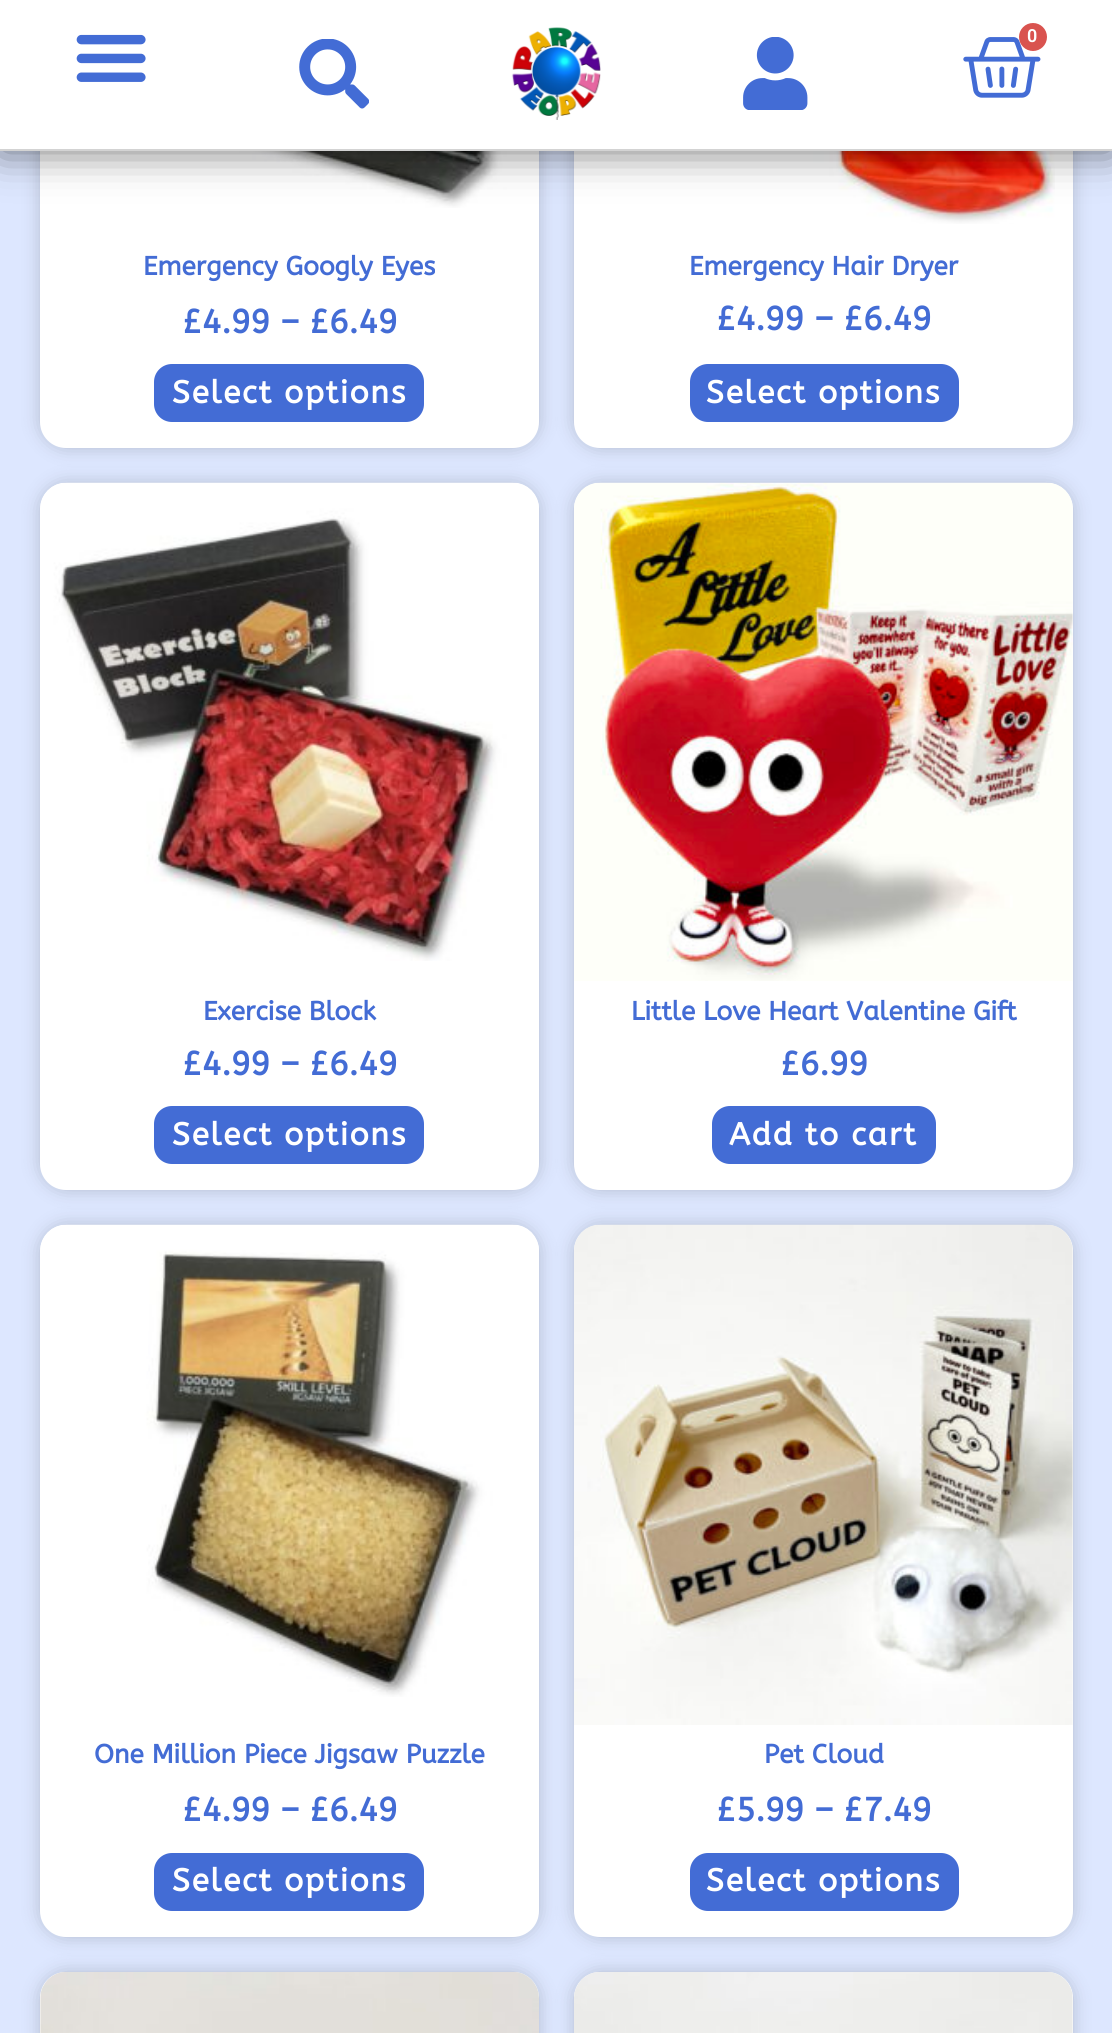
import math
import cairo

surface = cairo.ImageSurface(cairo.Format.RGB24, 1112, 2033)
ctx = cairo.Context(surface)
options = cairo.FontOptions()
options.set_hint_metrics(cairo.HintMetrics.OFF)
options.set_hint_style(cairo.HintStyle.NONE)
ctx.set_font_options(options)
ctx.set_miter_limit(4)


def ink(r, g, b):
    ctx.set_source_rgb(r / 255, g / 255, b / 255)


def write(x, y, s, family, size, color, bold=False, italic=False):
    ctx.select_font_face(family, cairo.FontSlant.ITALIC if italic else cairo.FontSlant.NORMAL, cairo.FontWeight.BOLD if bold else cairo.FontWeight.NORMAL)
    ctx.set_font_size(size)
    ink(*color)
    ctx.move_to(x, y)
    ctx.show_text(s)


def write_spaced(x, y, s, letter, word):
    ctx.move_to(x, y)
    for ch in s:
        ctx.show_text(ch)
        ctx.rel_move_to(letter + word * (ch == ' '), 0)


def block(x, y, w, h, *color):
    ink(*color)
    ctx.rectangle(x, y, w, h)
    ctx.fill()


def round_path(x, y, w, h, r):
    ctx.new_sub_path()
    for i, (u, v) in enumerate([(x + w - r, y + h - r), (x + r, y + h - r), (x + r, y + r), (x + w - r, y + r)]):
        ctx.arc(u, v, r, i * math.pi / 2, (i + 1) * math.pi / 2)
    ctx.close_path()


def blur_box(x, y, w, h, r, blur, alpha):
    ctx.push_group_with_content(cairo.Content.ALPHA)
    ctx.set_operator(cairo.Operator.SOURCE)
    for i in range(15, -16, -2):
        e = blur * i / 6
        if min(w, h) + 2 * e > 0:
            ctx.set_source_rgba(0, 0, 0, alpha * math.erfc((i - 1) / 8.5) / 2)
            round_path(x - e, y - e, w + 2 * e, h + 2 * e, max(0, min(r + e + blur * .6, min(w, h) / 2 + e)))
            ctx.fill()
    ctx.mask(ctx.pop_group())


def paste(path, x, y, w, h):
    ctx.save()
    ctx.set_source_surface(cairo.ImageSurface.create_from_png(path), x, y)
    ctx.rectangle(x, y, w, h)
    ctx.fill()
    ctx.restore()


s1 = dict(family="Roboto SemiBold", size=18, color=(255, 255, 255))
s2 = dict(family="ABeeZee", size=26.25, color=(67, 108, 213), bold=True)

ink(221, 231, 255)
ctx.paint()
ink(0, 0, 0)
blur_box(40, -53, 499, 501, 26, 9, 0.19)
ink(255, 255, 255)
round_path(40, -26, 499, 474, 26)
ctx.fill()
paste("pic6.png", 109, 151, 403, 57)
ink(0, 0, 0)
blur_box(574, -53, 499, 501, 26, 9, 0.19)
ink(255, 255, 255)
round_path(574, -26, 499, 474, 26)
ctx.fill()
paste("pic7.png", 736, 151, 319, 73)
ink(0, 0, 0)
blur_box(0, 0, 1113, 151, 0, 21, 0.55)
block(0, 0, 1112, 149, 255, 255, 255)
block(0, 149, 1112, 2, 211, 211, 211)
paste("pic1.png", 76, 34, 70, 48)
paste("pic2.png", 299, 39, 70, 70)
paste("pic3.png", 511, 27, 90, 93)
paste("pic4.png", 743, 37, 65, 73)
paste("pic5.png", 963, 37, 78, 61)
ink(217, 83, 79)
ctx.arc(1033, 37, 14, 0, 2 * math.pi)
ctx.fill()
write(1027, 42, "0", **s1)
write(143, 275, "Emergency Googly Eyes", **s2)
ctx.set_font_size(33.25)
write_spaced(182, 333, "£4.99 – £6.49", -0.3, 0)
round_path(154, 364, 270, 58, 18)
ctx.fill()
ctx.set_font_size(31.5)
ink(255, 255, 255)
write_spaced(172, 403, "Select options", 1.75, 0)
write(689, 275, "Emergency Hair Dryer", **s2)
ctx.set_font_size(33.25)
write_spaced(716, 330, "£4.99 – £6.49", -0.3, 0)
round_path(690, 364, 269, 58, 18)
ctx.fill()
ctx.set_font_size(31.5)
ink(255, 255, 255)
write_spaced(706, 403, "Select options", 1.75, 0)
ink(0, 0, 0)
blur_box(40, 483, 499, 707, 26, 9, 0.19)
ink(255, 255, 255)
round_path(40, 483, 499, 707, 26)
ctx.fill()
paste("pic8.png", 40, 482, 499, 479)
write(203, 1020, "Exercise Block", **s2)
ctx.set_font_size(33.25)
write_spaced(182, 1075, "£4.99 – £6.49", -0.3, 0)
round_path(154, 1106, 270, 58, 18)
ctx.fill()
ctx.set_font_size(31.5)
ink(255, 255, 255)
write_spaced(172, 1145, "Select options", 1.75, 0)
ink(0, 0, 0)
blur_box(574, 483, 499, 707, 26, 9, 0.19)
ink(255, 255, 255)
round_path(574, 483, 499, 707, 26)
ctx.fill()
paste("pic9.png", 574, 482, 499, 499)
write(631, 1020, "Little Love Heart Valentine Gift", **s2)
ctx.set_font_size(33.25)
write_spaced(780, 1075, "£6.99", -0.3, 0)
round_path(712, 1106, 224, 58, 18)
ctx.fill()
ctx.set_font_size(31.5)
ink(255, 255, 255)
write_spaced(729, 1145, "Add to cart", 1.75, 0)
ink(0, 0, 0)
blur_box(40, 1225, 499, 712, 26, 9, 0.19)
ink(255, 255, 255)
round_path(40, 1225, 499, 712, 26)
ctx.fill()
paste("pic10.png", 40, 1224, 499, 473)
write(94, 1763, "One Million Piece Jigsaw Puzzle", **s2)
ctx.set_font_size(33.25)
write_spaced(182, 1821, "£4.99 – £6.49", -0.3, 0)
round_path(154, 1853, 270, 58, 18)
ctx.fill()
ctx.set_font_size(31.5)
ink(255, 255, 255)
write_spaced(172, 1891, "Select options", 1.75, 0)
ink(0, 0, 0)
blur_box(574, 1225, 499, 712, 26, 9, 0.19)
ink(255, 255, 255)
round_path(574, 1225, 499, 712, 26)
ctx.fill()
paste("pic11.png", 574, 1224, 499, 501)
write(764, 1763, "Pet Cloud", **s2)
ctx.set_font_size(33.25)
write_spaced(716, 1821, "£5.99 – £7.49", -0.3, 0)
round_path(690, 1853, 269, 58, 18)
ctx.fill()
ctx.set_font_size(31.5)
ink(255, 255, 255)
write_spaced(706, 1891, "Select options", 1.75, 0)
ink(0, 0, 0)
blur_box(40, 1972, 499, 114, 26, 9, 0.19)
ink(255, 255, 255)
round_path(40, 1972, 499, 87, 26)
ctx.fill()
paste("pic12.png", 40, 1972, 499, 61)
ink(0, 0, 0)
blur_box(574, 1972, 499, 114, 26, 9, 0.19)
ink(255, 255, 255)
round_path(574, 1972, 499, 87, 26)
ctx.fill()
paste("pic13.png", 574, 1972, 499, 61)
surface.write_to_png("screenshot.png")
